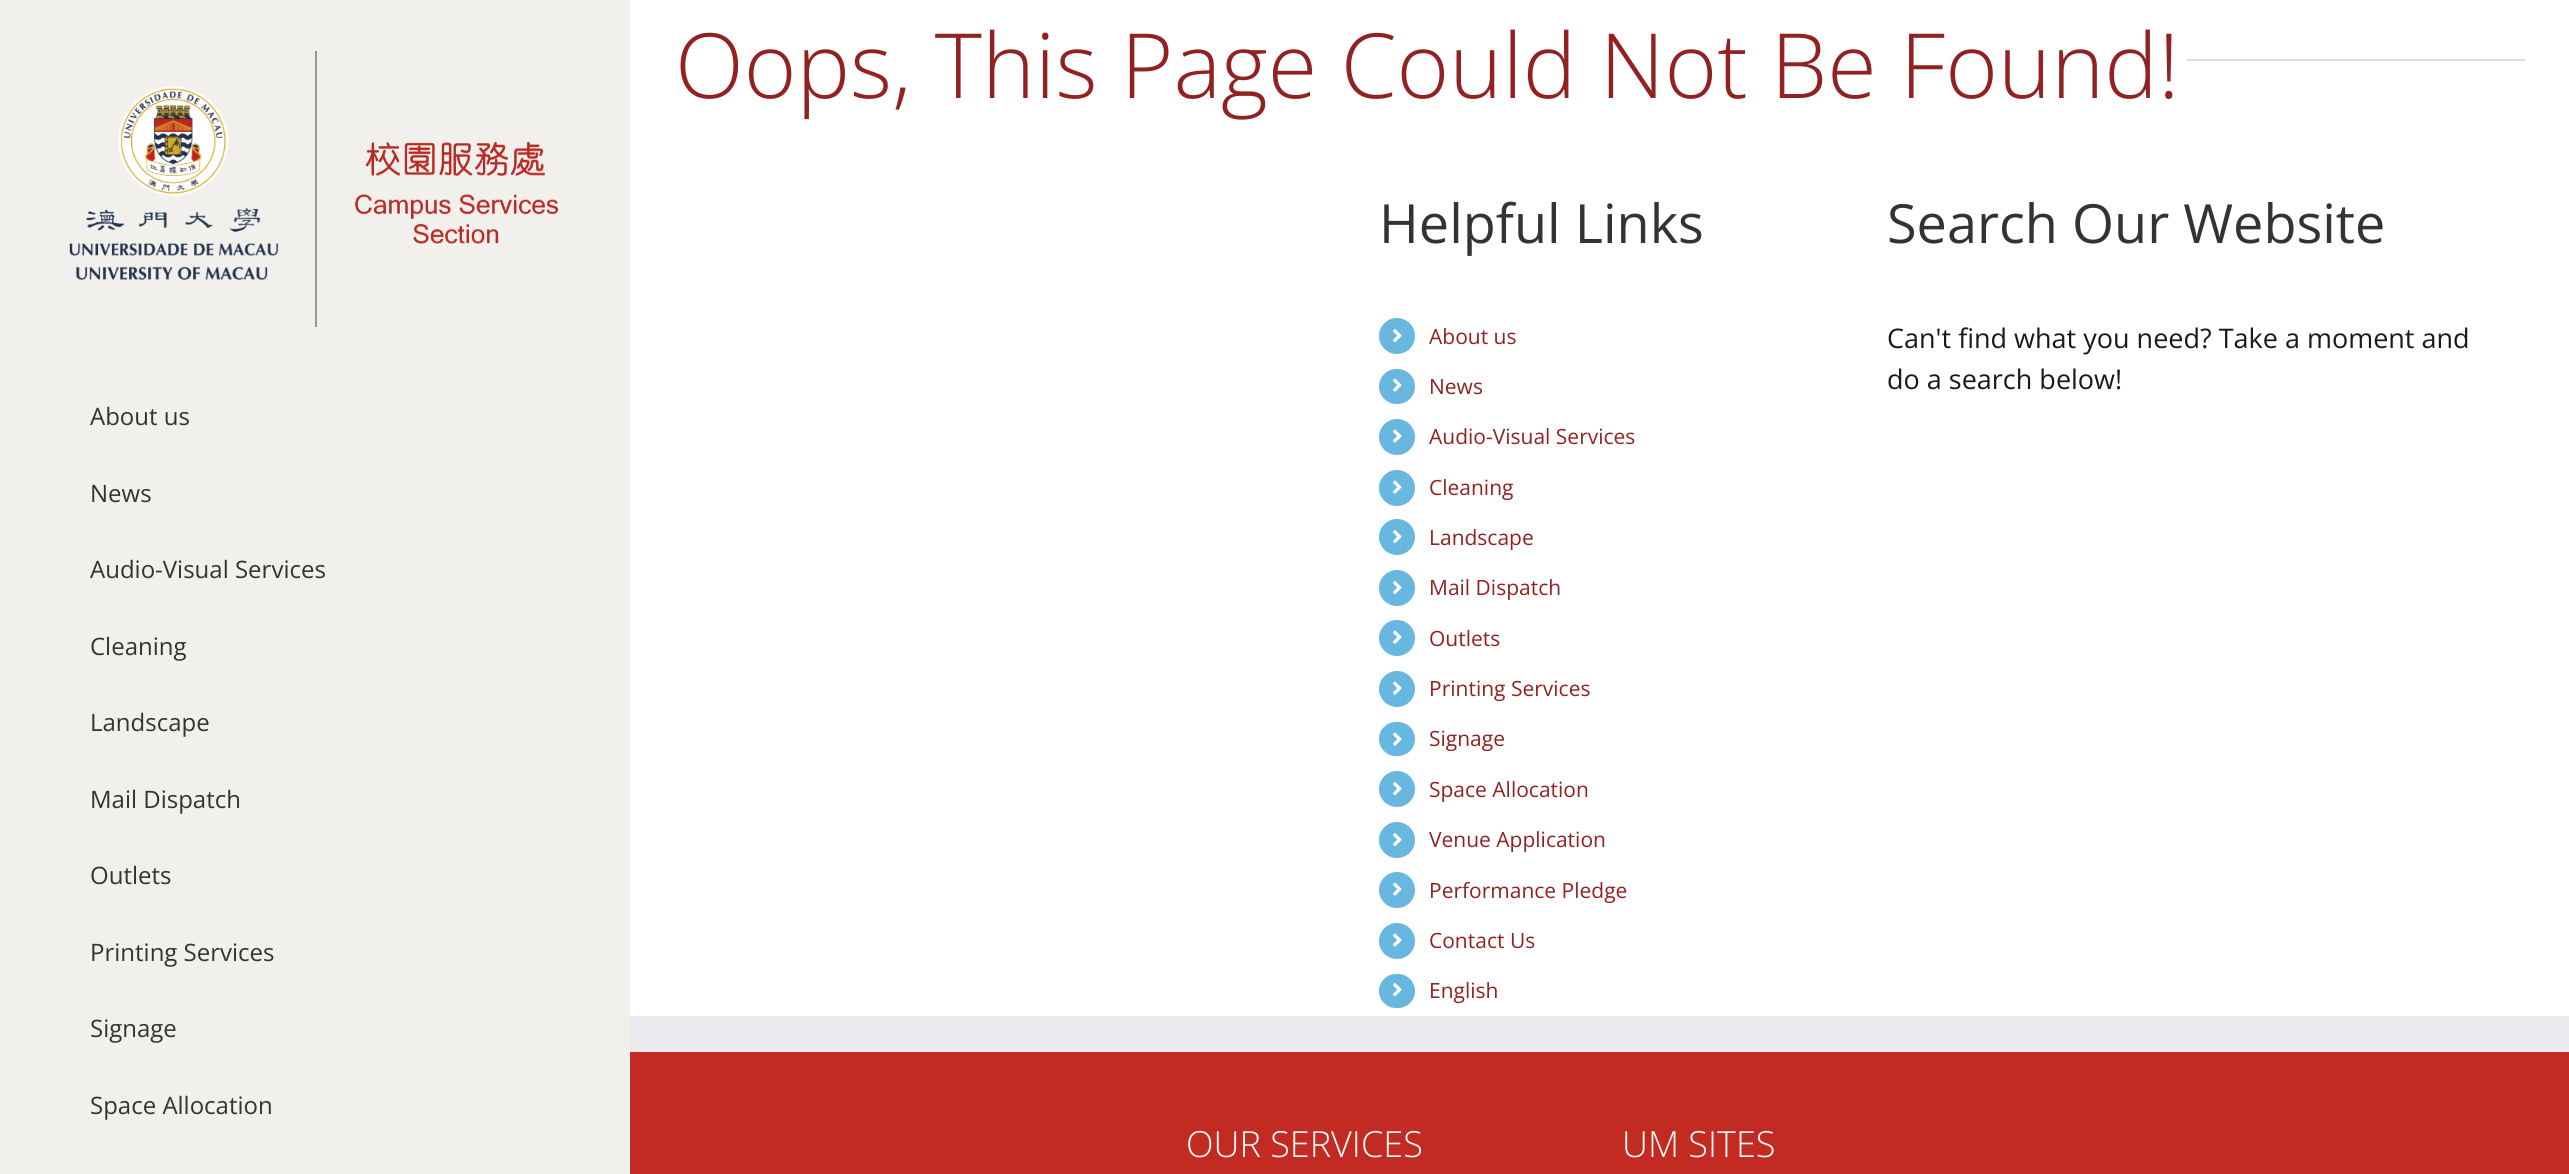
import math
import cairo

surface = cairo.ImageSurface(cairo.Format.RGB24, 2569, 1174)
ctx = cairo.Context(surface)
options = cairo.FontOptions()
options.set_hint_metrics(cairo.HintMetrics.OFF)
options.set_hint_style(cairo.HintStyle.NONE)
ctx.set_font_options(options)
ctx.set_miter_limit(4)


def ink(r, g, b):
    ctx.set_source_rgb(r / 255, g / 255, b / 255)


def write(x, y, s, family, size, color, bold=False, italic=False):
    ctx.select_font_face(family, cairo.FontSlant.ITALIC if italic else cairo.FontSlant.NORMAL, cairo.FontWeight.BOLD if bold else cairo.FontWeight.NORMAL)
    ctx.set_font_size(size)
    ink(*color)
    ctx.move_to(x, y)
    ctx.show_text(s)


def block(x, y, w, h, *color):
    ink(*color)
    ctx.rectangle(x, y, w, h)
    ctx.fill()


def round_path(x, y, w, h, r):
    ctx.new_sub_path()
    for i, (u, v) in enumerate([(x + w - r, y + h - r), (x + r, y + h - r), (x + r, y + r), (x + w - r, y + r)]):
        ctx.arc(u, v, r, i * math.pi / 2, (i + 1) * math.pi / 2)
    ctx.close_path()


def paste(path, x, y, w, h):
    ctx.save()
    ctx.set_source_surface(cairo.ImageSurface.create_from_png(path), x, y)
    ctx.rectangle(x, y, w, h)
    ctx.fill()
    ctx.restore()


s1 = dict(family="Open Sans", size=24, color=(51, 51, 51))
s2 = dict(family="Open Sans Light", size=90, color=(146, 33, 34))
s3 = dict(family="Open Sans", size=54, color=(51, 51, 51))
s4 = dict(family="Open Sans", size=21, color=(146, 33, 34))
s5 = dict(family="Open Sans", size=27, color=(25, 25, 25))
s6 = dict(family="Open Sans Light", size=36, color=(255, 255, 255))

ink(255, 255, 255)
ctx.paint()
block(0, 0, 630, 1174, 241, 240, 236)
paste("pic1.png", 69, 86, 210, 194)
block(315, 51, 2, 276, 153, 153, 153)
paste("pic2.png", 355, 141, 204, 103)
write(90, 425, "About us", **s1)
write(90, 502, "News", **s1)
write(90, 578, "Audio-Visual Services", **s1)
write(90, 655, "Cleaning", **s1)
write(90, 731, "Landscape", **s1)
write(90, 808, "Mail Dispatch", **s1)
write(90, 884, "Outlets", **s1)
write(90, 961, "Printing Services", **s1)
write(90, 1037, "Signage", **s1)
write(90, 1114, "Space Allocation", **s1)
write(675, 98, "Oops, This Page Could Not Be Found!", **s2)
block(2187, 59, 338, 2, 224, 222, 222)
write(1379, 243, "Helpful Links", **s3)
ink(103, 183, 225)
ctx.new_path()
ctx.arc(1397, 336, 18, 0, 2 * math.pi)
ctx.fill()
paste("pic3.png", 1393, 329, 9, 14)
write(1429, 344, "About us", **s4)
ink(103, 183, 225)
round_path(1379, 369, 36, 35, 17.5)
ctx.fill()
paste("pic4.png", 1393, 378, 9, 14)
write(1429, 394, "News", **s4)
ink(103, 183, 225)
ctx.new_path()
ctx.arc(1397, 437, 18, 0, 2 * math.pi)
ctx.fill()
paste("pic4.png", 1393, 429, 9, 14)
write(1429, 444, "Audio-Visual Services", **s4)
ink(103, 183, 225)
ctx.new_path()
ctx.arc(1397, 488, 18, 0, 2 * math.pi)
ctx.fill()
paste("pic4.png", 1393, 480, 9, 14)
write(1429, 495, "Cleaning", **s4)
ink(103, 183, 225)
ctx.new_path()
ctx.arc(1397, 537, 18, 0, 2 * math.pi)
ctx.fill()
paste("pic3.png", 1393, 530, 9, 14)
write(1429, 545, "Landscape", **s4)
ink(103, 183, 225)
ctx.new_path()
ctx.arc(1397, 588, 18, 0, 2 * math.pi)
ctx.fill()
paste("pic3.png", 1393, 581, 9, 14)
write(1429, 595, "Mail Dispatch", **s4)
ink(103, 183, 225)
ctx.new_path()
ctx.arc(1397, 638, 18, 0, 2 * math.pi)
ctx.fill()
paste("pic4.png", 1393, 630, 9, 14)
write(1429, 646, "Outlets", **s4)
ink(103, 183, 225)
ctx.new_path()
ctx.arc(1397, 689, 18, 0, 2 * math.pi)
ctx.fill()
paste("pic4.png", 1393, 681, 9, 14)
write(1429, 696, "Printing Services", **s4)
ink(103, 183, 225)
round_path(1379, 722, 36, 34, 17)
ctx.fill()
paste("pic4.png", 1393, 732, 9, 14)
write(1429, 746, "Signage", **s4)
ink(103, 183, 225)
ctx.new_path()
ctx.arc(1397, 789, 18, 0, 2 * math.pi)
ctx.fill()
paste("pic3.png", 1393, 782, 9, 14)
write(1429, 797, "Space Allocation", **s4)
ink(103, 183, 225)
ctx.new_path()
ctx.arc(1397, 840, 18, 0, 2 * math.pi)
ctx.fill()
paste("pic3.png", 1393, 833, 9, 14)
write(1429, 847, "Venue Application", **s4)
ink(103, 183, 225)
ctx.new_path()
ctx.arc(1397, 890, 18, 0, 2 * math.pi)
ctx.fill()
paste("pic4.png", 1393, 882, 9, 14)
write(1429, 898, "Performance Pledge", **s4)
ink(103, 183, 225)
ctx.new_path()
ctx.arc(1397, 941, 18, 0, 2 * math.pi)
ctx.fill()
paste("pic4.png", 1393, 933, 9, 14)
write(1429, 948, "Contact Us", **s4)
ink(103, 183, 225)
round_path(1379, 974, 36, 34, 17)
ctx.fill()
paste("pic3.png", 1393, 983, 9, 14)
write(1429, 998, "English", **s4)
write(1887, 243, "Search Our Website", **s3)
write(1887, 348, "Can't find what you need? Take a moment and", **s5)
write(1887, 389, "do a search below!", **s5)
block(630, 1052, 1939, 122, 195, 42, 33)
block(630, 1016, 1939, 36, 233, 234, 238)
write(1186, 1157, "OUR SERVICES", **s6)
write(1622, 1157, "UM SITES", **s6)
surface.write_to_png("screenshot.png")
